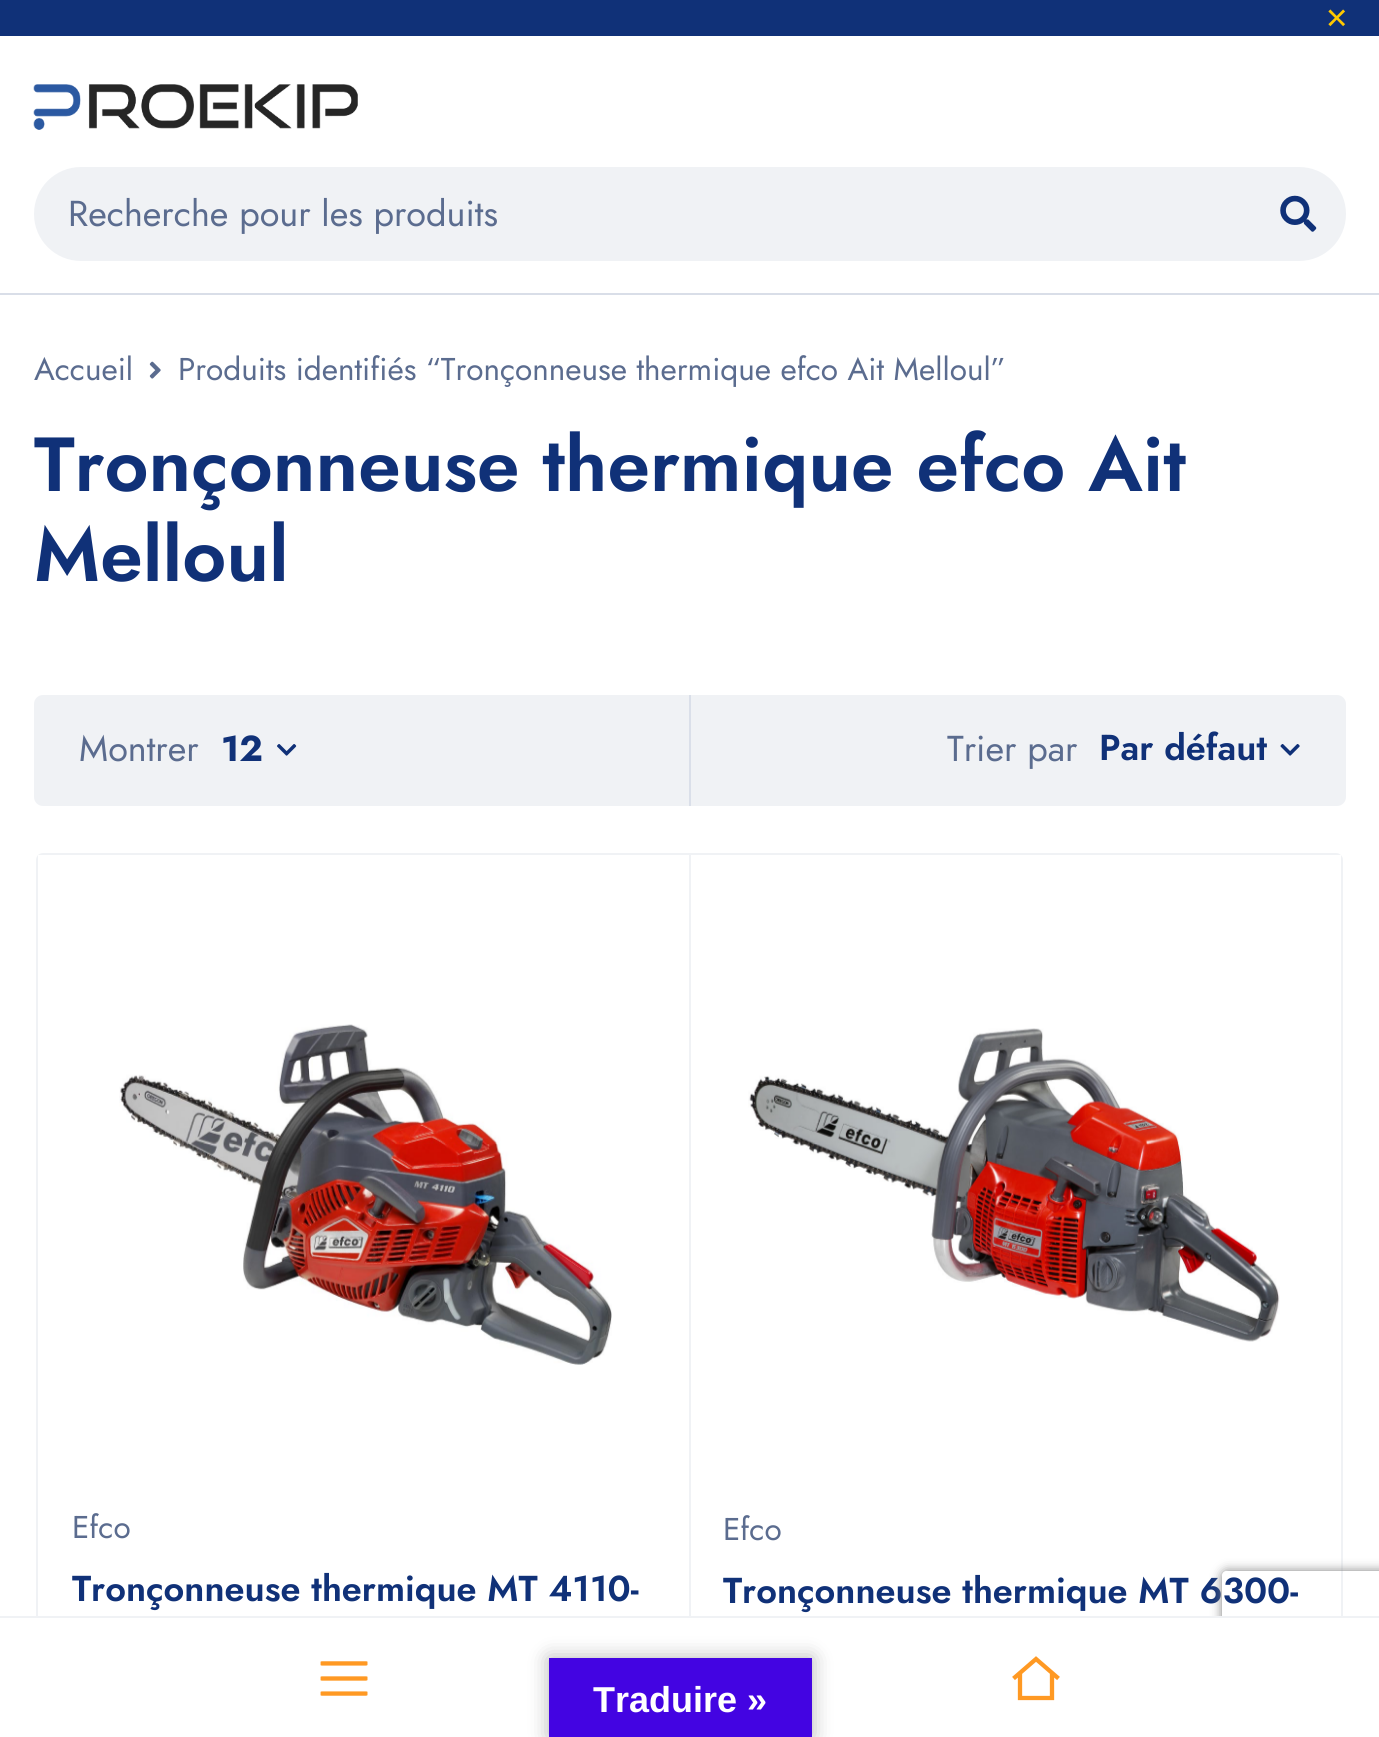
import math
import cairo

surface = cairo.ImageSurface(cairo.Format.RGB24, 1379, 1737)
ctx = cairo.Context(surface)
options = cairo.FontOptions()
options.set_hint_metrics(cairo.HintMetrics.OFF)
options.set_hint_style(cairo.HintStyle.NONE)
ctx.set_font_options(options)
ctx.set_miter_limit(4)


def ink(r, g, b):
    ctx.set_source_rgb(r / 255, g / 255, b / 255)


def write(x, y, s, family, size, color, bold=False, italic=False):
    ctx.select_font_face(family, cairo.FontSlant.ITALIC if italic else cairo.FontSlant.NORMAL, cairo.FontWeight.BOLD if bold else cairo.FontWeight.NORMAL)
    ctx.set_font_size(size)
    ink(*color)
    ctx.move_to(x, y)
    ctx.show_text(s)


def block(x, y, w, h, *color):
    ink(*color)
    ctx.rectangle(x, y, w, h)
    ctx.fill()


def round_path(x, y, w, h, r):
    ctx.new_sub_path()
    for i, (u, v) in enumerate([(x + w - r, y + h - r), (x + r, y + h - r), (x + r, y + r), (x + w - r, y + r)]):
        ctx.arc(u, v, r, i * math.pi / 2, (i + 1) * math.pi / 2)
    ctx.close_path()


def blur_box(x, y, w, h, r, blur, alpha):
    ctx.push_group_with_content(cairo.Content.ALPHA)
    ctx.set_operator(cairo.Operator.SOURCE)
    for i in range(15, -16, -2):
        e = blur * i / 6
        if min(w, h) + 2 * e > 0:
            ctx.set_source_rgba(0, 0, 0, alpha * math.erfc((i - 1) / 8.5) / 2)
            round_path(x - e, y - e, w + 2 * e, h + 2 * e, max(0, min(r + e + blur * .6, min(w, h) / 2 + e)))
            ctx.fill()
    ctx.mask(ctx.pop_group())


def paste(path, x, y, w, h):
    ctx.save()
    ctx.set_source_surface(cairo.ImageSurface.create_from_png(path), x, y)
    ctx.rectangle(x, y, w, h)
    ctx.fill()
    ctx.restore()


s1 = dict(family="Jost", size=36, color=(255, 200, 0))
s2 = dict(family="Jost", size=36, color=(91, 108, 143))
s3 = dict(family="Jost", size=31.5, color=(91, 108, 143))
s4 = dict(family="Jost SemiBold", size=76.5, color=(16, 49, 120))
s5 = dict(family="Jost", size=36, color=(16, 49, 120), bold=True)
s6 = dict(family="Jost SemiBold", size=36, color=(16, 49, 120))
s7 = dict(family="Liberation Sans", size=36, color=(255, 255, 255), bold=True)

ink(255, 255, 255)
ctx.paint()
block(0, 0, 1379, 36, 16, 49, 120)
write(1326, 27, "×", **s1)
block(0, 293, 1379, 2, 217, 222, 232)
paste("pic1.png", 33, 84, 325, 46)
ink(240, 242, 245)
round_path(34, 167, 1312, 94, 47)
ctx.fill()
write(68, 226, "Recherche pour les produits", **s2)
paste("pic2.png", 1280, 195, 37, 37)
write(34, 380, "Accueil", **s3)
paste("pic3.png", 149, 361, 12, 18)
write(178, 380, "Produits identifiés “Tronçonneuse thermique efco Ait Melloul”", **s3)
write(34, 491, "Tronçonneuse thermique efco Ait", **s4)
write(34, 581, "Melloul", **s4)
ink(240, 242, 245)
round_path(34, 695, 1312, 111, 9)
ctx.fill()
block(689, 695, 2, 111, 218, 223, 233)
write(79, 761, "Montrer", **s2)
write(221, 761, "12", **s5)
paste("pic4.png", 277, 744, 20, 12)
write(947, 761, "Trier par", **s2)
write(1099, 760, "Par défaut", **s6)
paste("pic5.png", 1280, 744, 20, 12)
ink(240, 242, 245)
ctx.new_path()
ctx.move_to(43, 853)
ctx.curve_to(41, 853, 39, 854, 38, 855)
ctx.line_to(689, 855)
ctx.line_to(689, 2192)
ctx.line_to(38, 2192)
ctx.line_to(38, 855)
ctx.curve_to(37, 856, 36, 858, 36, 860)
ctx.line_to(36, 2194)
ctx.line_to(691, 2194)
ctx.line_to(691, 853)
ctx.close_path()
ctx.fill()
paste("pic6.png", 119, 1024, 493, 341)
write(72, 1538, "Efco", **s3)
write(72, 1601, "Tronçonneuse thermique MT 4110-", **s6)
ctx.save()
round_path(36, 853, 1307, 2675, 7)
ctx.clip()
block(691, 853, 652, 2, 240, 242, 245)
block(1341, 853, 2, 763, 240, 242, 245)
ctx.restore()
paste("pic7.png", 748, 1028, 532, 314)
write(723, 1540, "Efco", **s3)
write(723, 1603, "Tronçonneuse thermique MT 6300-", **s6)
ctx.save()
ctx.set_fill_rule(cairo.FillRule.EVEN_ODD)
ctx.new_path()
ctx.move_to(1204, 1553)
ctx.line_to(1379, 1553)
ctx.line_to(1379, 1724)
ctx.line_to(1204, 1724)
ctx.close_path()
ctx.move_to(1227, 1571)
ctx.line_to(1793, 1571)
ctx.curve_to(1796, 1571, 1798, 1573, 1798, 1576)
ctx.line_to(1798, 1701)
ctx.curve_to(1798, 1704, 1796, 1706, 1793, 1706)
ctx.line_to(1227, 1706)
ctx.curve_to(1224, 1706, 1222, 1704, 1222, 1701)
ctx.line_to(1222, 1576)
ctx.curve_to(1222, 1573, 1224, 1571, 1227, 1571)
ctx.close_path()
ctx.clip()
ink(128, 128, 128)
blur_box(1222, 1571, 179, 135, 5, 5.5, 1)
ctx.restore()
block(36, 1618, 1343, 119, 255, 255, 255)
block(0, 1616, 1379, 2, 240, 242, 245)
paste("pic8.png", 320, 1661, 48, 35)
ctx.new_path()
ctx.move_to(1052, 1674)
ctx.line_to(1052, 1698)
ctx.line_to(1020, 1698)
ctx.line_to(1020, 1674)
ctx.move_to(1058.5, 1678.5)
ctx.line_to(1036, 1659)
ctx.line_to(1013.5, 1678.5)
ink(255, 153, 35)
ctx.set_line_width(4.3)
ctx.stroke()
ink(0, 0, 0)
blur_box(549, 1658, 263, 79, 0, 10, 0.3)
block(549, 1658, 263, 79, 67, 4, 226)
write(593, 1712, "Traduire »", **s7)
surface.write_to_png("screenshot.png")
